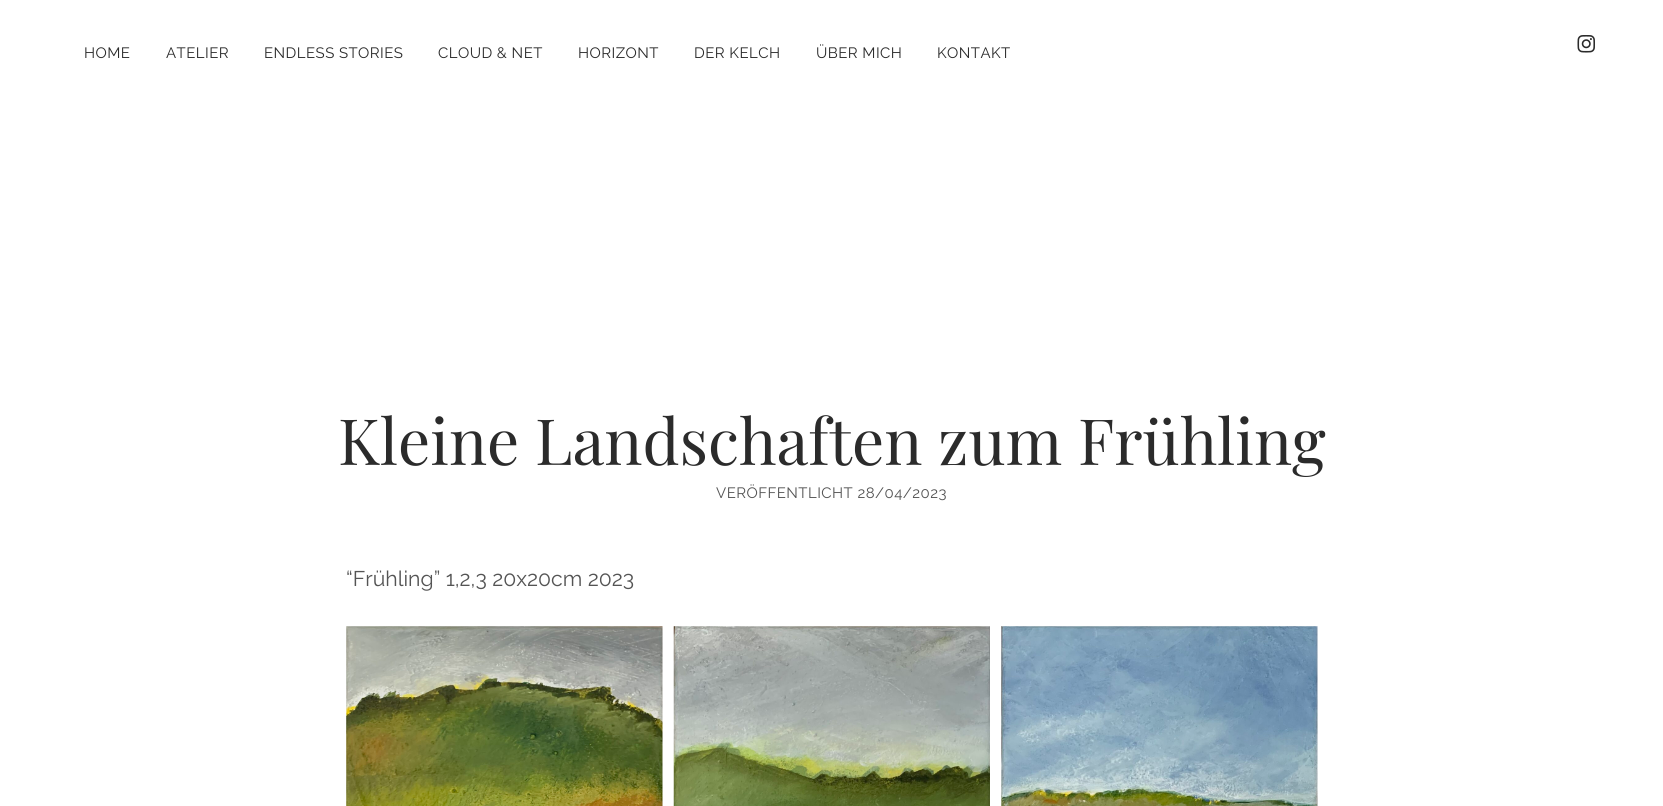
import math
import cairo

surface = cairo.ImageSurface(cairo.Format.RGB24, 1663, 806)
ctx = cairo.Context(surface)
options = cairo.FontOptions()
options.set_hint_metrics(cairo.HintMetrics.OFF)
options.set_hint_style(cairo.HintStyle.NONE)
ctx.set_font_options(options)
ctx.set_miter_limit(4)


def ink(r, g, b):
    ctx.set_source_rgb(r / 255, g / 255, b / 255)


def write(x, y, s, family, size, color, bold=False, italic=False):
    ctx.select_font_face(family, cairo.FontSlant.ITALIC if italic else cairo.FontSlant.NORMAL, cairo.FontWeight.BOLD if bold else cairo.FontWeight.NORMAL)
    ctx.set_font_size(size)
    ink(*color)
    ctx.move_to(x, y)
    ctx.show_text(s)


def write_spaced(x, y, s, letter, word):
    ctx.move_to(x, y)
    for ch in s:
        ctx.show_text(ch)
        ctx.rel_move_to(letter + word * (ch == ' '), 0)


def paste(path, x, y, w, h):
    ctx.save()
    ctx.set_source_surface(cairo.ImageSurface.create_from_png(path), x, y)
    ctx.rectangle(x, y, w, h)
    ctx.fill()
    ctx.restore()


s1 = dict(family="Playfair Display", size=63.75, color=(43, 43, 43))
s2 = dict(family="Raleway", size=21.25, color=(84, 84, 84))

ink(255, 255, 255)
ctx.paint()
ctx.select_font_face("Raleway")
ctx.set_font_size(15)
ink(43, 43, 43)
write_spaced(84, 58, "HOME", 0.45, 0)
write_spaced(166, 58, "ATELIER", 0.45, 0)
write_spaced(264, 58, "ENDLESS STORIES", 0.45, 0)
write_spaced(438, 58, "CLOUD & NET", 0.45, 0)
write_spaced(578, 58, "HORIZONT", 0.45, 0)
write_spaced(694, 58, "DER KELCH", 0.45, 0)
write_spaced(816, 58, "ÜBER MICH", 0.45, 0)
write_spaced(937, 58, "KONTAKT", 0.45, 0)
paste("pic1.png", 1577, 35, 18, 18)
write(338, 465, "Kleine Landschaften zum Frühling", **s1)
ctx.select_font_face("Raleway")
ctx.set_font_size(15)
ink(84, 84, 84)
write_spaced(716, 498, "VERÖFFENTLICHT 28/04/2023", 0.45, 0)
write(346, 586, "“Frühling” 1,2,3 20x20cm 2023", **s2)
paste("pic2.png", 346, 626, 317, 180)
paste("pic3.png", 673, 626, 317, 180)
paste("pic4.png", 1001, 626, 317, 180)
surface.write_to_png("screenshot.png")
